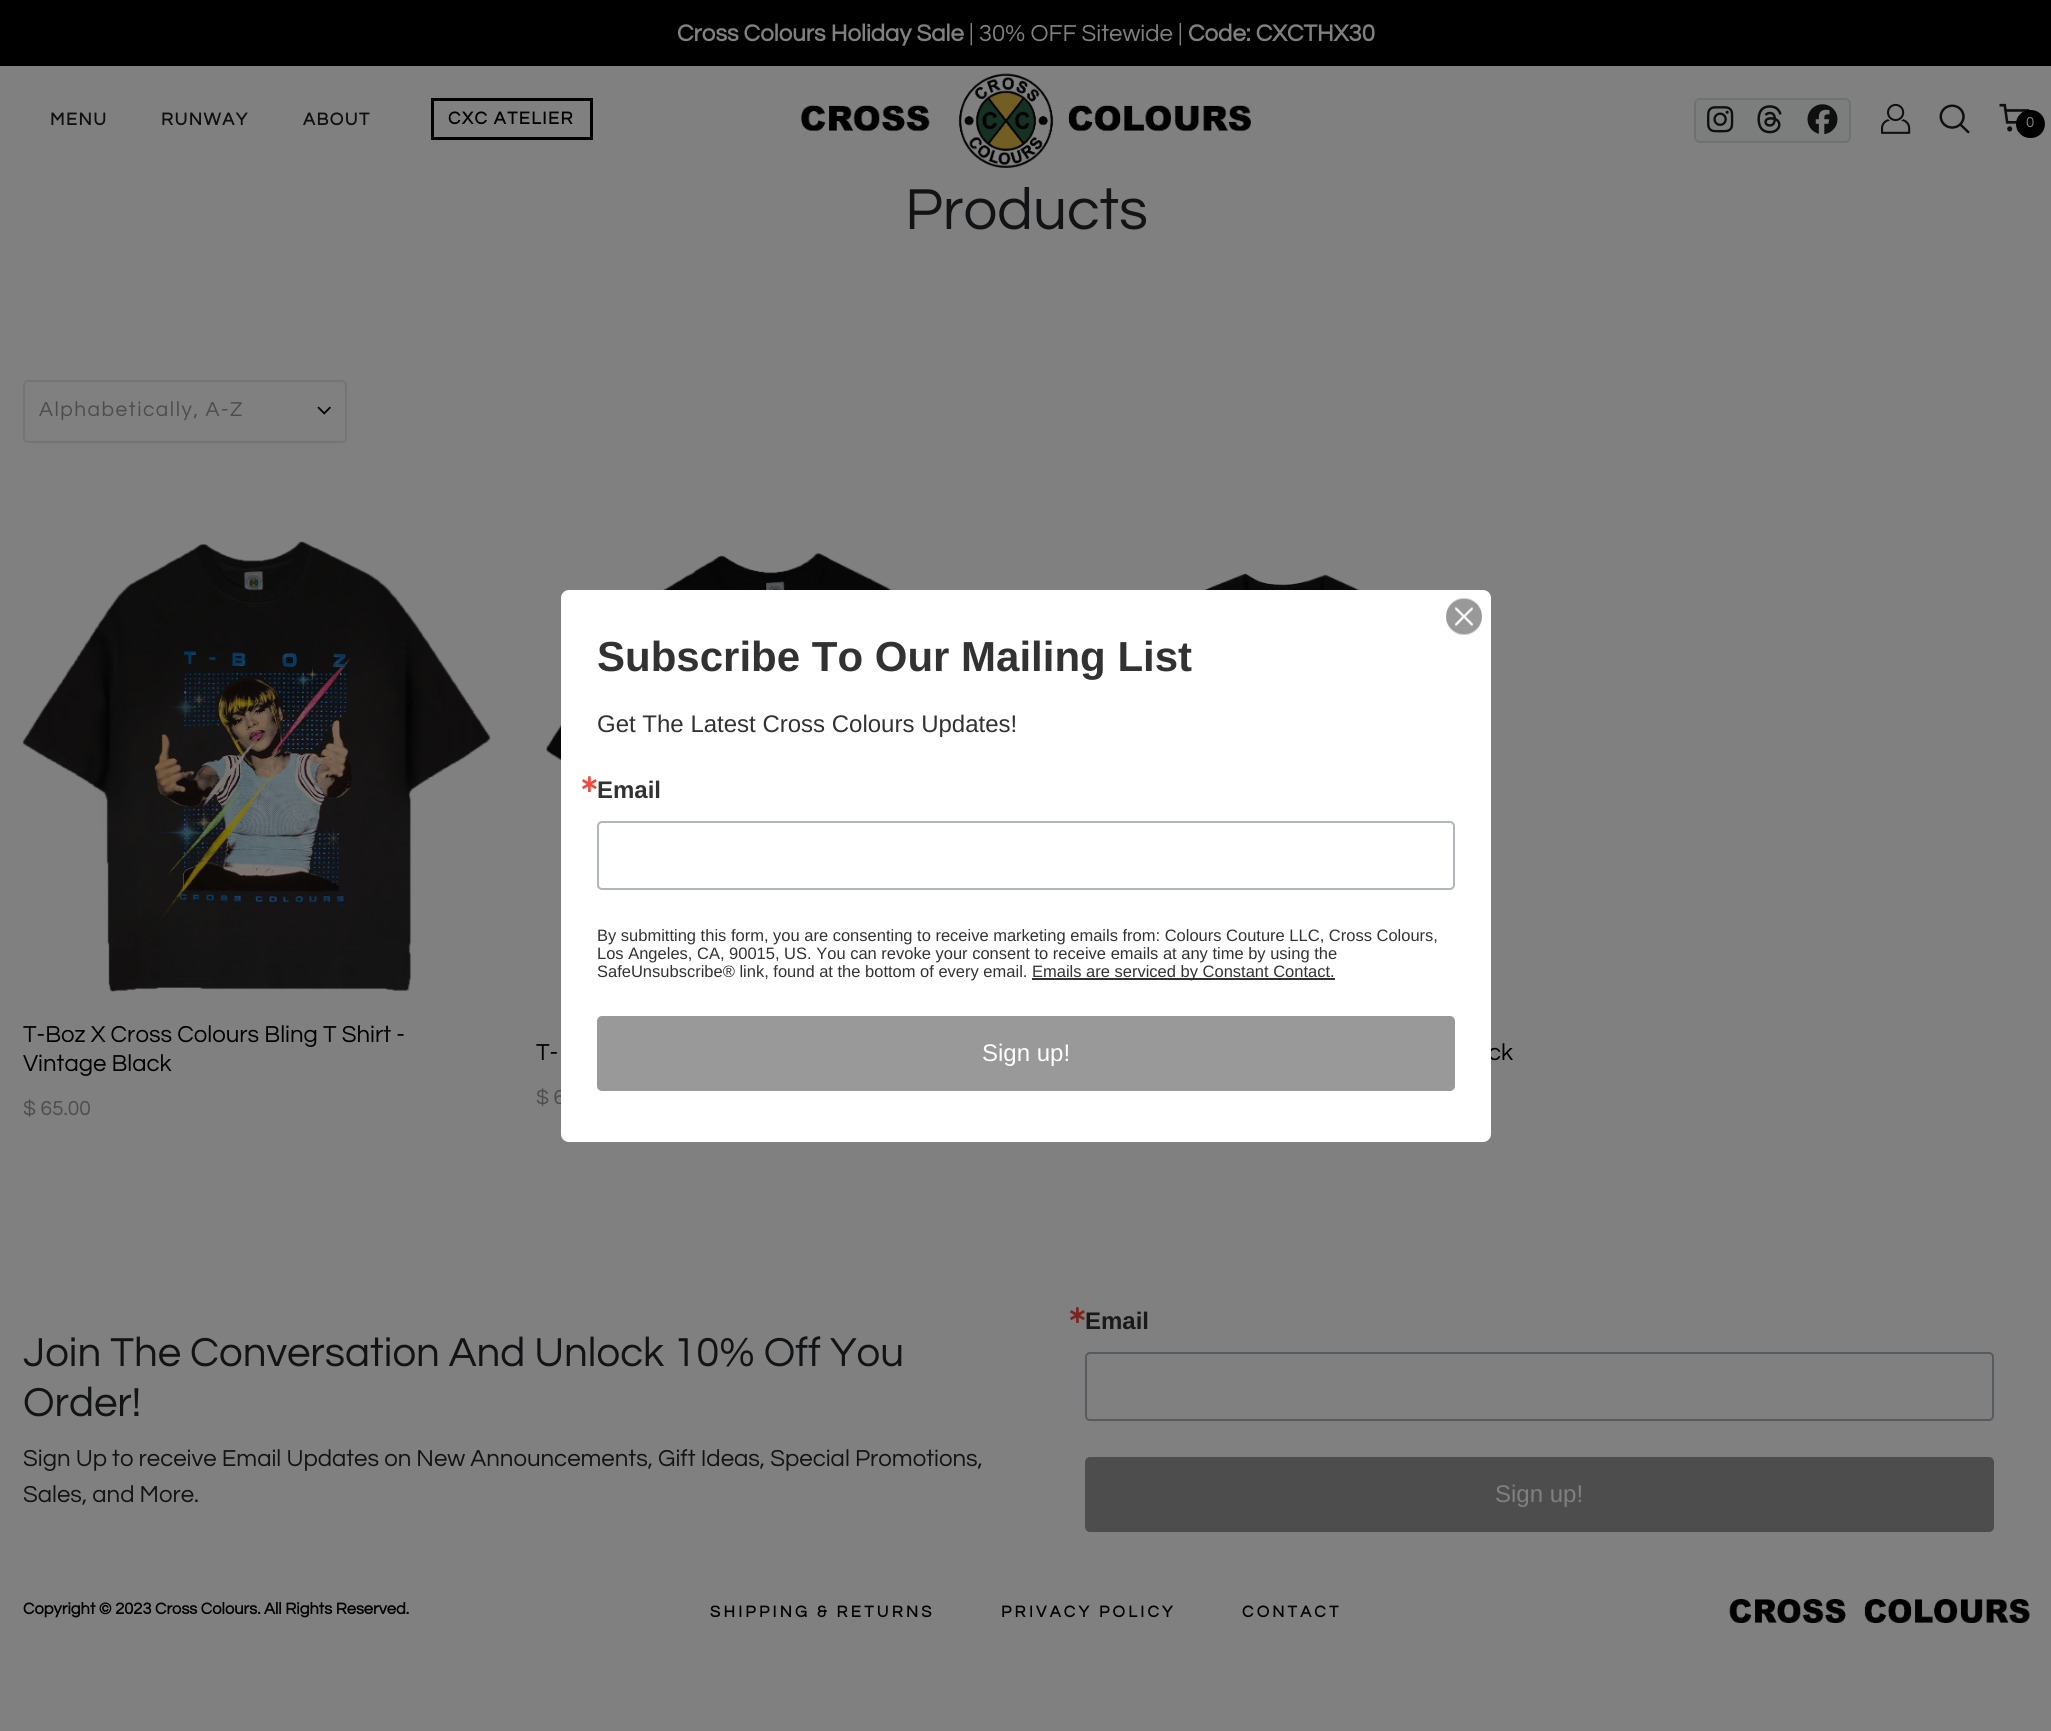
import math
import cairo

surface = cairo.ImageSurface(cairo.Format.RGB24, 2051, 1731)
ctx = cairo.Context(surface)
options = cairo.FontOptions()
options.set_hint_metrics(cairo.HintMetrics.OFF)
options.set_hint_style(cairo.HintStyle.NONE)
ctx.set_font_options(options)
ctx.set_miter_limit(4)


def ink(r, g, b):
    ctx.set_source_rgb(r / 255, g / 255, b / 255)


def write(x, y, s, family, size, color, bold=False, italic=False):
    ctx.select_font_face(family, cairo.FontSlant.ITALIC if italic else cairo.FontSlant.NORMAL, cairo.FontWeight.BOLD if bold else cairo.FontWeight.NORMAL)
    ctx.set_font_size(size)
    ink(*color)
    ctx.move_to(x, y)
    ctx.show_text(s)


def write_spaced(x, y, s, letter, word):
    ctx.move_to(x, y)
    for ch in s:
        ctx.show_text(ch)
        ctx.rel_move_to(letter + word * (ch == ' '), 0)


def block(x, y, w, h, *color):
    ink(*color)
    ctx.rectangle(x, y, w, h)
    ctx.fill()


def round_path(x, y, w, h, r):
    ctx.new_sub_path()
    for i, (u, v) in enumerate([(x + w - r, y + h - r), (x + r, y + h - r), (x + r, y + r), (x + w - r, y + r)]):
        ctx.arc(u, v, r, i * math.pi / 2, (i + 1) * math.pi / 2)
    ctx.close_path()


def paste(path, x, y, w, h):
    ctx.save()
    ctx.set_source_surface(cairo.ImageSurface.create_from_png(path), x, y)
    ctx.rectangle(x, y, w, h)
    ctx.fill()
    ctx.restore()


s1 = dict(family="Questrial", size=24, color=(128, 128, 128), bold=True)
s2 = dict(family="Questrial", size=24, color=(128, 128, 128))
s3 = dict(family="Questrial", size=15, color=(128, 128, 128))
s4 = dict(family="Questrial", size=60, color=(17, 19, 21))
s5 = dict(family="Questrial", size=24, color=(0, 0, 0))
s6 = dict(family="Questrial", size=21, color=(77, 77, 77))
s7 = dict(family="Questrial", size=42, color=(17, 19, 21))
s8 = dict(family="Questrial", size=24, color=(17, 19, 21))
s9 = dict(family="DejaVu Sans", size=24, color=(123, 35, 30), bold=True)
s10 = dict(family="Liberation Sans", size=24, color=(25, 25, 25), bold=True)
s11 = dict(family="Liberation Sans", size=24, color=(128, 128, 128))
s12 = dict(family="Questrial", size=16.5, color=(0, 0, 0), bold=True)
s13 = dict(family="Liberation Sans", size=42, color=(50, 50, 50), bold=True)
s14 = dict(family="Liberation Sans", size=24, color=(50, 50, 50))
s15 = dict(family="DejaVu Sans", size=24, color=(245, 70, 59), bold=True)
s16 = dict(family="Liberation Sans", size=24, color=(50, 50, 50), bold=True)
s17 = dict(family="Liberation Sans", size=16.5, color=(50, 50, 50))
s18 = dict(family="Liberation Sans", size=24, color=(255, 255, 255))

ink(128, 128, 128)
ctx.paint()
block(0, 0, 2051, 66, 0, 0, 0)
write(677, 41, "Cross Colours Holiday Sale", **s1)
write(969, 41, "| 30% OFF Sitewide |", **s2)
write(1188, 41, "Code: CXCTHX30", **s1)
ctx.set_font_size(18)
ink(15, 15, 15)
write_spaced(50, 125, "MENU", 1.5, 0)
write_spaced(161, 125, "RUNWAY", 1.5, 0)
write_spaced(303, 125, "ABOUT", 1.5, 0)
ctx.rectangle(432.5, 99.5, 159, 39)
ink(0, 0, 0)
ctx.set_line_width(3)
ctx.stroke()
write_spaced(448, 124, "CXC ATELIER", 1.5, 0)
paste("pic1.png", 801, 73, 450, 95)
ink(124, 125, 125)
round_path(1695, 99, 155, 43, 5)
ctx.fill_preserve()
ink(111, 113, 115)
ctx.set_line_width(2)
ctx.stroke()
paste("pic2.png", 1707, 106, 27, 27)
paste("pic3.png", 1757, 105, 25, 29)
paste("pic4.png", 1807, 104, 31, 31)
paste("pic5.png", 1881, 103, 30, 31)
paste("pic6.png", 1939, 104, 31, 30)
paste("pic7.png", 1999, 103, 31, 29)
ink(0, 0, 0)
round_path(2016, 110, 29, 28, 14)
ctx.fill()
write(2026, 127, "0", **s3)
write(905, 229, "Products", **s4)
round_path(24, 381, 322, 61, 4)
ink(117, 117, 117)
ctx.stroke()
ctx.set_font_size(21)
ink(77, 77, 77)
write_spaced(39, 416, "Alphabetically, A-Z", 1.5, 0)
paste("pic8.png", 317, 406, 14, 9)
paste("pic9.png", 22, 541, 469, 451)
write(23, 1042, "T-Boz X Cross Colours Bling T Shirt -", **s5)
write(23, 1071, "Vintage Black", **s5)
write(23, 1115, "$ 65.00", **s6)
paste("pic10.png", 546, 552, 346, 209)
write(536, 1060, "T-", **s5)
write(536, 1104, "$ 6", **s6)
paste("pic11.png", 1204, 573, 156, 17)
write(1488, 1060, "ck", **s5)
write(23, 1366, "Join The Conversation And Unlock 10% Off You", **s7)
write(23, 1416, "Order!", **s7)
write(23, 1466, "Sign Up to receive Email Updates on New Announcements, Gift Ideas, Special Promotions,", **s8)
write(23, 1502, "Sales, and More.", **s8)
write(1067, 1323, "∗", **s9)
write(1085, 1329, "Email", **s10)
round_path(1086, 1353, 907, 67, 4)
ink(88, 91, 94)
ctx.stroke()
ink(77, 77, 77)
round_path(1086, 1458, 907, 73, 4)
ctx.fill_preserve()
ctx.stroke()
write(1495, 1502, "Sign up!", **s11)
write(23, 1614, "Copyright © 2023 Cross Colours. All Rights Reserved.", **s12)
write_spaced(710, 1617, "SHIPPING & RETURNS", 3.25, 0)
write_spaced(1001, 1617, "PRIVACY POLICY", 3.25, 0)
write_spaced(1242, 1617, "CONTACT", 3.25, 0)
paste("pic12.png", 1729, 1599, 301, 24)
ink(255, 255, 255)
round_path(561, 590, 930, 552, 8)
ctx.fill()
paste("pic13.png", 1446, 598, 36, 37)
write(597, 671, "Subscribe To Our Mailing List", **s13)
write(597, 732, "Get The Latest Cross Colours Updates!", **s14)
write(579, 792, "∗", **s15)
write(597, 798, "Email", **s16)
round_path(598, 822, 856, 67, 4)
ink(176, 182, 187)
ctx.stroke()
write(597, 941, "By submitting this form, you are consenting to receive marketing emails from: Colours Couture LLC, Cross Colours,", **s17)
write(597, 959, "Los Angeles, CA, 90015, US. You can revoke your consent to receive emails at any time by using the", **s17)
write(597, 977, "SafeUnsubscribe® link, found at the bottom of every email.", **s17)
block(1032, 978, 303, 2, 50, 50, 50)
write(1032, 977, "Emails are serviced by Constant Contact.", **s17)
ink(153, 153, 153)
round_path(598, 1017, 856, 73, 4)
ctx.fill_preserve()
ctx.stroke()
write(982, 1061, "Sign up!", **s18)
surface.write_to_png("screenshot.png")
